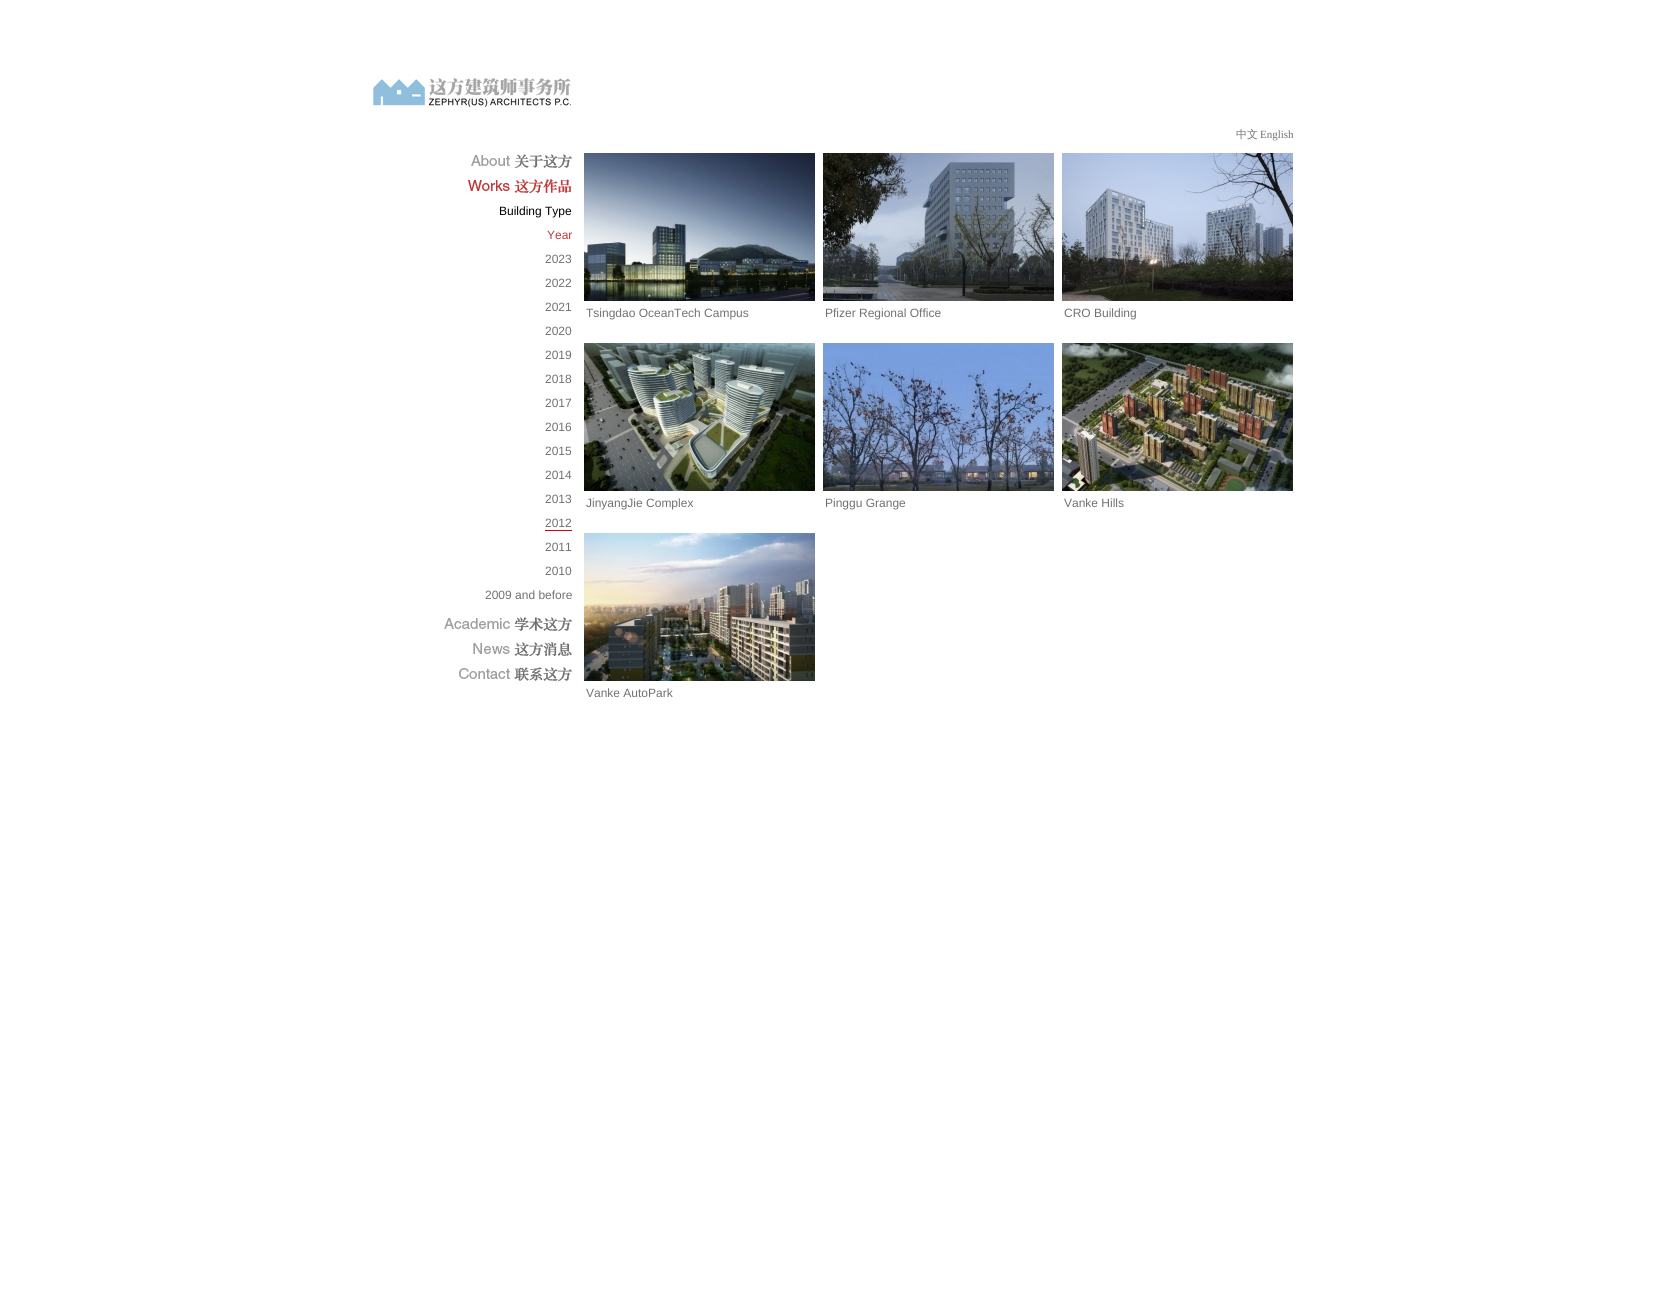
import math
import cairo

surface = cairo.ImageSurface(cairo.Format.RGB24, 1667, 1303)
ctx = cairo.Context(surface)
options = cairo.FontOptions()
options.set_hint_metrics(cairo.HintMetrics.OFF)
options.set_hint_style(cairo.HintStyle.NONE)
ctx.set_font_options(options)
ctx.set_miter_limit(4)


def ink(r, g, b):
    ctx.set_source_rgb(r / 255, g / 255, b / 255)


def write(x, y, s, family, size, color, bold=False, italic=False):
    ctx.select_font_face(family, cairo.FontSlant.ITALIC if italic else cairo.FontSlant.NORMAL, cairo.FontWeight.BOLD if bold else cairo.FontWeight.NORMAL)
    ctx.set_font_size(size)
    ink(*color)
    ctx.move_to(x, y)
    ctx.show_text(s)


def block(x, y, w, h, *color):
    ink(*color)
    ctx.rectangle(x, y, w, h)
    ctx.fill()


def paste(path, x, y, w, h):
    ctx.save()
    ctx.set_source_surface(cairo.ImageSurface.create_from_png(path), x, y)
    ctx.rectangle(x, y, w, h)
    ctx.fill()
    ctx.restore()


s1 = dict(family="WenQuanYi Zen Hei Medium", size=11, color=(113, 113, 113))
s2 = dict(family="Liberation Serif", size=11, color=(113, 113, 113))
s3 = dict(family="Liberation Sans", size=12, color=(0, 0, 0))
s4 = dict(family="Liberation Sans", size=12, color=(190, 57, 57))
s5 = dict(family="Liberation Sans", size=12, color=(113, 113, 113))

ink(255, 255, 255)
ctx.paint()
paste("pic1.png", 373, 78, 198, 29)
write(1236, 138, "中文", **s1)
write(1260, 138, "English", **s2)
paste("pic2.png", 471, 154, 101, 15)
paste("pic3.png", 468, 179, 104, 14)
write(499, 215, "Building Type", **s3)
write(547, 239, "Year", **s4)
write(545, 263, "2023", **s5)
write(545, 287, "2022", **s5)
write(545, 311, "2021", **s5)
write(545, 335, "2020", **s5)
write(545, 359, "2019", **s5)
write(545, 383, "2018", **s5)
write(545, 407, "2017", **s5)
write(545, 431, "2016", **s5)
write(545, 455, "2015", **s5)
write(545, 479, "2014", **s5)
write(545, 503, "2013", **s5)
write(545, 527, "2012", **s5)
block(545, 530, 27, 1, 220, 0, 0)
write(545, 551, "2011", **s5)
write(545, 575, "2010", **s5)
write(485, 599, "2009 and before", **s5)
paste("pic4.png", 444, 617, 128, 15)
paste("pic5.png", 473, 642, 99, 15)
paste("pic6.png", 459, 667, 113, 15)
paste("pic7.png", 584, 153, 231, 148)
write(586, 317, "Tsingdao OceanTech Campus", **s5)
paste("pic8.png", 823, 153, 231, 148)
write(825, 317, "Pfizer Regional Office", **s5)
paste("pic9.png", 1062, 153, 231, 148)
write(1064, 317, "CRO Building", **s5)
paste("pic10.png", 584, 343, 231, 148)
write(586, 507, "JinyangJie Complex", **s5)
paste("pic11.png", 823, 343, 231, 148)
write(825, 507, "Pinggu Grange", **s5)
paste("pic12.png", 1062, 343, 231, 148)
write(1064, 507, "Vanke Hills", **s5)
paste("pic13.png", 584, 533, 231, 148)
write(586, 697, "Vanke AutoPark", **s5)
surface.write_to_png("screenshot.png")
